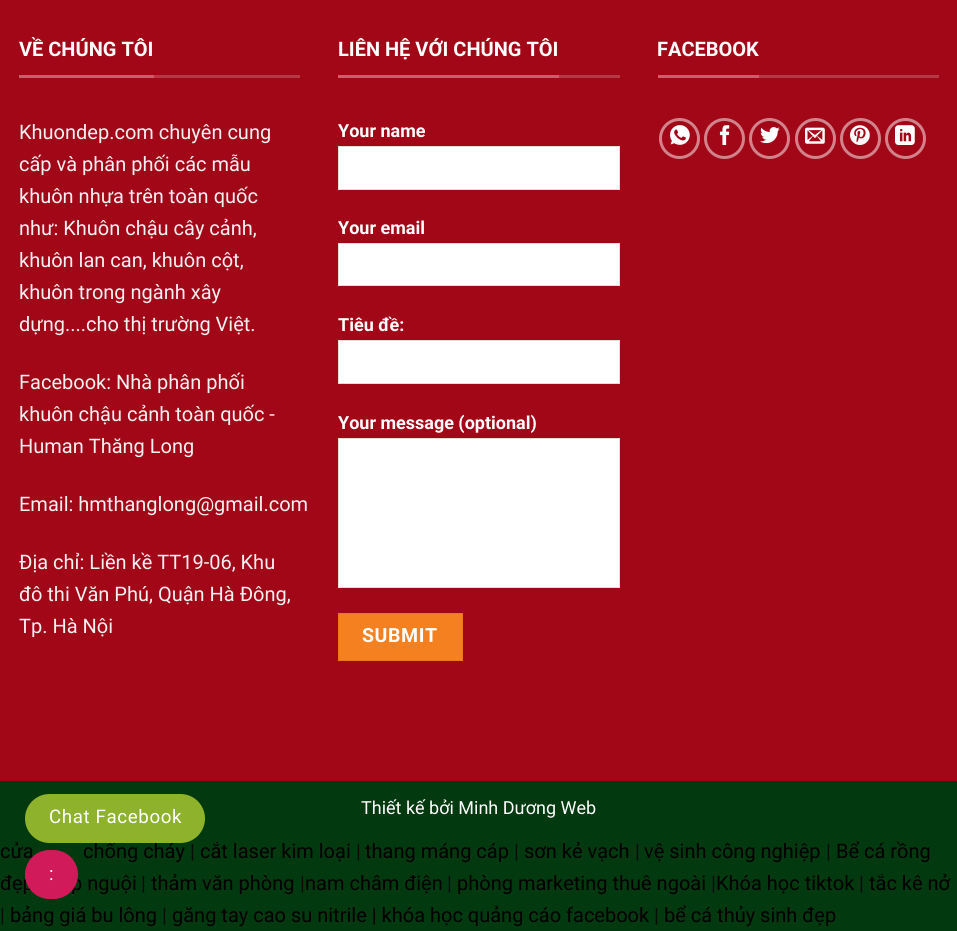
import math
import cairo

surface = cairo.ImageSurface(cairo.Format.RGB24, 957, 931)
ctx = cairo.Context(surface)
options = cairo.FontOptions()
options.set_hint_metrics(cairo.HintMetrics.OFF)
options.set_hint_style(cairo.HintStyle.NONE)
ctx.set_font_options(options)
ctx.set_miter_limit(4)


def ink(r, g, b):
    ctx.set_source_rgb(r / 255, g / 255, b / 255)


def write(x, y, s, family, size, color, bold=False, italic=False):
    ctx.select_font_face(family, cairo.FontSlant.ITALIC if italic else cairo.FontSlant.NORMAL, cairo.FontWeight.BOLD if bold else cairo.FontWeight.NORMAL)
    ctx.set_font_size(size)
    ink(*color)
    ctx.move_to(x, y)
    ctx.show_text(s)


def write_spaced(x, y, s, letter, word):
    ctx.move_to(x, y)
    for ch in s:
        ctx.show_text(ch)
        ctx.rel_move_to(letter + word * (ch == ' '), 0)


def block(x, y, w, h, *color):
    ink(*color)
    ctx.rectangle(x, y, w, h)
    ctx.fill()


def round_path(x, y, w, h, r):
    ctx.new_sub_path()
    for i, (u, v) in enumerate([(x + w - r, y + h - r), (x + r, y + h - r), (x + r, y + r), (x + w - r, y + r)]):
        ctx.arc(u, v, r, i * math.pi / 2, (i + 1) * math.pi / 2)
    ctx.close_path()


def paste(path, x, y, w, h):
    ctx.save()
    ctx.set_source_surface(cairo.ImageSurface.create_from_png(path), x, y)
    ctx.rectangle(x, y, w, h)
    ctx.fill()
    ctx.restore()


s1 = dict(family="Roboto", size=20, color=(255, 255, 255), bold=True)
s2 = dict(family="Roboto", size=20, color=(241, 241, 241))
s3 = dict(family="Roboto", size=18, color=(255, 255, 255), bold=True)
s4 = dict(family="Roboto", size=18, color=(255, 255, 255))
s5 = dict(family="Roboto", size=20, color=(0, 0, 0))
s6 = dict(family="Roboto", size=20, color=(10, 10, 10))

ink(2, 57, 15)
ctx.paint()
block(0, 0, 957, 781, 162, 7, 23)
block(154, 75, 146, 3, 181, 57, 69)
block(19, 75, 135, 3, 196, 97, 106)
write(19, 56, "VỀ CHÚNG TÔI", **s1)
write(19, 139, "Khuondep.com chuyên cung", **s2)
write(19, 171, "cấp và phân phối các mẫu", **s2)
write(19, 203, "khuôn nhựa trên toàn quốc", **s2)
write(19, 235, "như: Khuôn chậu cây cảnh,", **s2)
write(19, 267, "khuôn lan can, khuôn cột,", **s2)
write(19, 299, "khuôn trong ngành xây", **s2)
write(19, 331, "dựng....cho thị trường Việt.", **s2)
write(19, 389, "Facebook: Nhà phân phối", **s2)
write(19, 421, "khuôn chậu cảnh toàn quốc -", **s2)
write(19, 453, "Human Thăng Long", **s2)
write(19, 511, "Email: hmthanglong@gmail.com", **s2)
write(19, 569, "Địa chỉ: Liền kề TT19-06, Khu", **s2)
write(19, 601, "đô thi Văn Phú, Quận Hà Đông,", **s2)
write(19, 633, "Tp. Hà Nội", **s2)
block(559, 75, 61, 3, 181, 57, 69)
block(338, 75, 221, 3, 196, 97, 106)
write(338, 56, "LIÊN HỆ VỚI CHÚNG TÔI", **s1)
write(338, 137, "Your name", **s3)
ctx.rectangle(338.5, 146.5, 281, 43)
ctx.fill_preserve()
ink(221, 221, 221)
ctx.set_line_width(1)
ctx.stroke()
write(338, 234, "Your email", **s3)
ctx.rectangle(338.5, 243.5, 281, 42)
ctx.fill_preserve()
ink(221, 221, 221)
ctx.stroke()
write(338, 331, "Tiêu đề:", **s3)
ctx.rectangle(338.5, 340.5, 281, 43)
ctx.fill_preserve()
ink(221, 221, 221)
ctx.stroke()
write(338, 429, "Your message (optional)", **s3)
ctx.rectangle(338.5, 438.5, 281, 149)
ctx.fill_preserve()
ink(221, 221, 221)
ctx.stroke()
ink(244, 128, 32)
ctx.rectangle(338.5, 613.5, 124, 47)
ctx.fill_preserve()
ink(232, 122, 30)
ctx.stroke()
ctx.set_font_size(19.5)
ink(255, 255, 255)
write_spaced(362, 642, "SUBMIT", 0.6, 0)
block(759, 75, 180, 3, 181, 57, 69)
block(658, 75, 101, 3, 196, 97, 106)
write(657, 56, "FACEBOOK", **s1)
ctx.new_path()
ctx.arc(679.5, 138.5, 19, 0, 2 * math.pi)
ink(209, 131, 139)
ctx.set_line_width(3)
ctx.stroke()
paste("pic1.png", 670, 125, 20, 20)
ctx.arc(724.5, 138.5, 19, 0, 2 * math.pi)
ctx.stroke()
paste("pic2.png", 719, 125, 11, 20)
ctx.arc(769.5, 138.5, 19, 0, 2 * math.pi)
ctx.stroke()
paste("pic3.png", 760, 127, 20, 17)
ctx.arc(815.5, 138.5, 19, 0, 2 * math.pi)
ctx.stroke()
paste("pic4.png", 805, 127, 20, 17)
ctx.arc(860.5, 138.5, 19, 0, 2 * math.pi)
ctx.stroke()
paste("pic5.png", 850, 125, 20, 20)
ctx.arc(905.5, 138.5, 19, 0, 2 * math.pi)
ctx.stroke()
paste("pic6.png", 895, 125, 20, 20)
write(361, 814, "Thiết kế bởi Minh Dương Web", **s4)
write(0, 858, "cửa", **s5)
write(83, 858, "chống cháy", **s5)
write(200, 858, "cắt laser kim loại", **s5)
ink(142, 178, 43)
round_path(25, 794, 180, 49, 24.5)
ctx.fill()
ctx.set_font_size(18.75)
ink(255, 255, 255)
write_spaced(49, 823, "Chat Facebook", 0.6, 0)
write(0, 890, "đẹp", **s5)
write(71, 890, "p nguội", **s5)
ink(209, 26, 89)
round_path(25, 850, 53, 49, 24.5)
ctx.fill()
ctx.set_font_size(18.75)
ink(255, 255, 255)
write_spaced(49, 880, ":", 0.6, 0)
write(190, 858, "|", **s6)
write(356, 858, "|", **s6)
write(365, 858, "thang máng cáp", **s5)
write(514, 858, "|", **s6)
write(524, 858, "sơn kẻ vạch", **s5)
write(635, 858, "|", **s6)
write(644, 858, "vệ sinh công nghiệp", **s5)
write(826, 858, "|", **s6)
write(836, 858, "Bể cá rồng", **s5)
write(141, 890, "|", **s6)
write(151, 890, "thảm văn phòng", **s5)
write(300, 890, "|", **s6)
write(305, 890, "nam châm điện", **s5)
write(447, 890, "|", **s6)
write(457, 890, "phòng marketing thuê ngoài", **s5)
write(711, 890, "|", **s6)
write(716, 890, "Khóa học tiktok", **s5)
write(859, 890, "|", **s6)
write(869, 890, "tắc kê nở", **s5)
write(0, 922, "|", **s6)
write(10, 922, "bảng giá bu lông", **s5)
write(162, 922, "|", **s6)
write(172, 922, "găng tay cao su nitrile | khóa học quảng cáo facebook", **s5)
write(654, 922, "|", **s6)
write(664, 922, "bể cá thủy sinh đẹp", **s5)
surface.write_to_png("screenshot.png")
